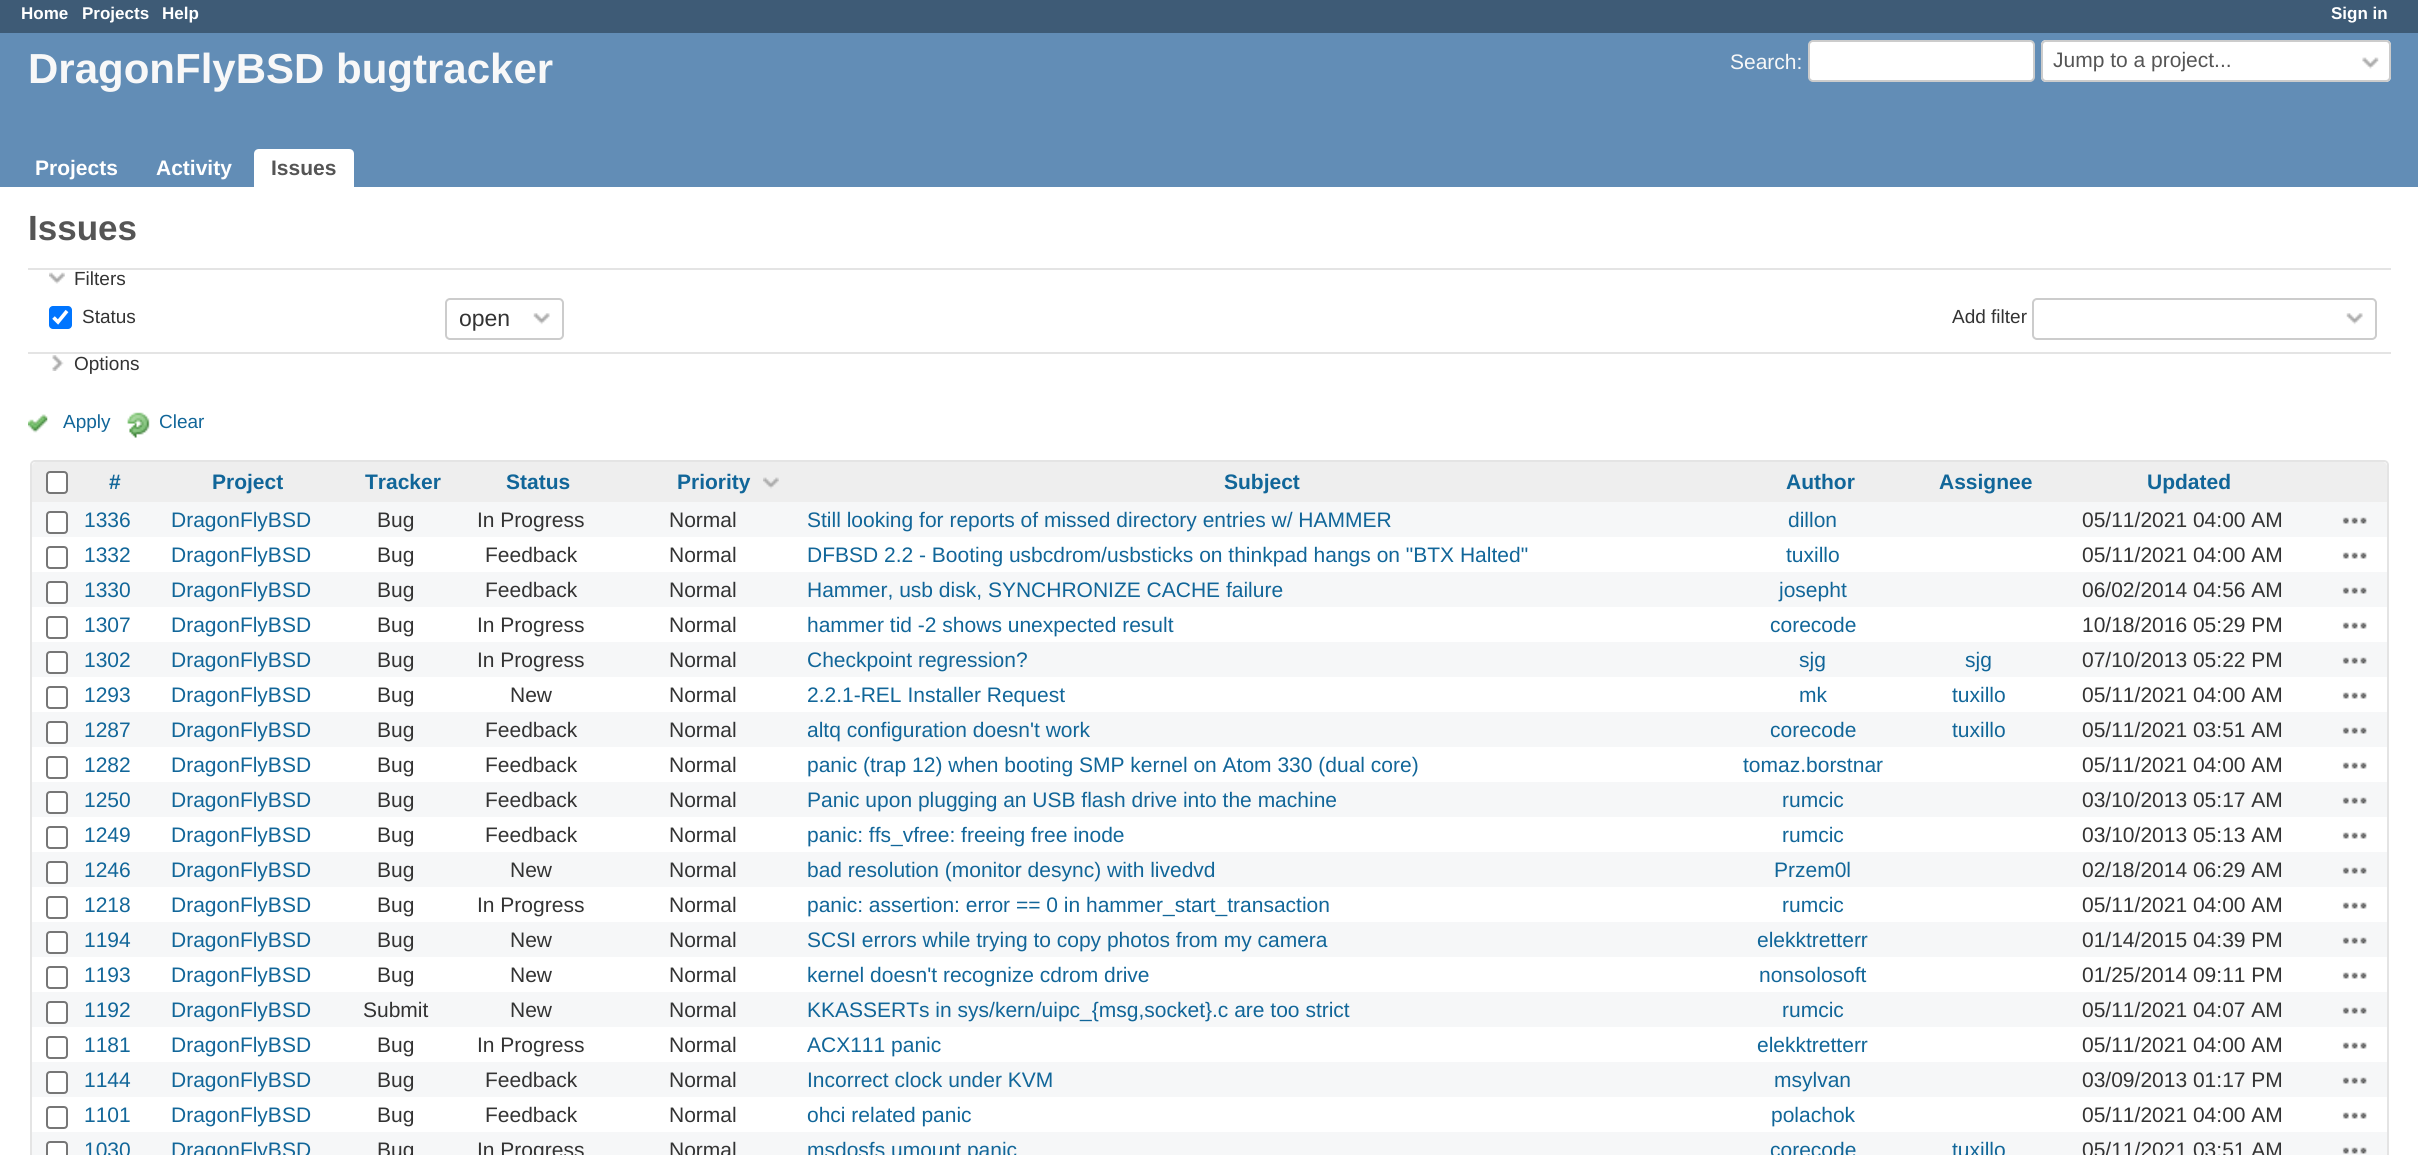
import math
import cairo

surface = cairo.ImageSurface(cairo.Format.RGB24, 2418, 1155)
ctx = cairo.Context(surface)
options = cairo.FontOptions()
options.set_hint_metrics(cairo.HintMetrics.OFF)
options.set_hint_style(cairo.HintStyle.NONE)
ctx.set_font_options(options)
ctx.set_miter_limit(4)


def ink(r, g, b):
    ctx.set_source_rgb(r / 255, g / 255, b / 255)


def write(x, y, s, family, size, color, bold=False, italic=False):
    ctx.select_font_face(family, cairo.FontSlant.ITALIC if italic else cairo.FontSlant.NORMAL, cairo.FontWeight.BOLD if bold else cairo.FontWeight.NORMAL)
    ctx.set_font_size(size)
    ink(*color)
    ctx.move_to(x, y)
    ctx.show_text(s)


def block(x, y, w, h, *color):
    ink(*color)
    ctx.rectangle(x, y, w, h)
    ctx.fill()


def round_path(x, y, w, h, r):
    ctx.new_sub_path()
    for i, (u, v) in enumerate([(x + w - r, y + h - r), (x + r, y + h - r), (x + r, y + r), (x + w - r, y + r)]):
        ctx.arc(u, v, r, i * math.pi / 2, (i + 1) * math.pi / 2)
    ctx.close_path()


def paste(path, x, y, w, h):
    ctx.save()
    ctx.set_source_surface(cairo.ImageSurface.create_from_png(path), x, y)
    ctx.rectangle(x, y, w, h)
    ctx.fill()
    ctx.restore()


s1 = dict(family="Liberation Sans", size=17, color=(255, 255, 255), bold=True)
s2 = dict(family="Liberation Sans", size=42, color=(248, 248, 248), bold=True)
s3 = dict(family="Liberation Sans", size=21, color=(248, 248, 248))
s4 = dict(family="Liberation Sans", size=21, color=(85, 85, 85))
s5 = dict(family="Liberation Sans", size=21, color=(255, 255, 255), bold=True)
s6 = dict(family="Liberation Sans", size=21, color=(85, 85, 85), bold=True)
s7 = dict(family="Liberation Sans", size=35, color=(85, 85, 85), bold=True)
s8 = dict(family="Liberation Sans", size=19, color=(51, 51, 51))
s9 = dict(family="Liberation Sans", size=23, color=(51, 51, 51))
s10 = dict(family="Liberation Sans", size=19, color=(17, 102, 153))
s11 = dict(family="Liberation Sans", size=21, color=(17, 102, 153), bold=True)
s12 = dict(family="Liberation Sans", size=21, color=(17, 102, 153))
s13 = dict(family="Liberation Sans", size=21, color=(51, 51, 51))

ink(255, 255, 255)
ctx.paint()
block(0, 0, 2418, 33, 62, 91, 118)
write(21, 19, "Home", **s1)
write(82, 19, "Projects", **s1)
write(162, 19, "Help", **s1)
write(2331, 19, "Sign in", **s1)
block(0, 33, 2418, 154, 98, 141, 182)
write(28, 83, "DragonFlyBSD bugtracker", **s2)
write(1730, 69, "Search:", **s3)
ink(255, 255, 255)
round_path(1809, 41, 225, 40, 4)
ctx.fill_preserve()
ink(204, 204, 204)
ctx.stroke()
ink(255, 255, 255)
round_path(2041, 40, 350, 42, 5)
ctx.fill()
paste("pic1.png", 2362, 57, 17, 12)
round_path(2042, 41, 348, 40, 4)
ink(204, 204, 204)
ctx.stroke()
write(2053, 67, "Jump to a project...", **s4)
write(35, 175, "Projects", **s5)
write(156, 175, "Activity", **s5)
ctx.new_path()
ctx.move_to(259, 149)
ctx.line_to(349, 149)
ctx.curve_to(352, 149, 354, 151, 354, 154)
ctx.line_to(354, 187)
ctx.line_to(254, 187)
ctx.line_to(254, 154)
ctx.curve_to(254, 151, 256, 149, 259, 149)
ctx.close_path()
ctx.fill()
write(271, 175, "Issues", **s6)
write(28, 240, "Issues", **s7)
block(28, 268, 2363, 2, 228, 228, 228)
paste("pic2.png", 49, 272, 16, 12)
write(74, 285, "Filters", **s8)
ink(0, 117, 255)
round_path(49, 306, 23, 23, 4)
ctx.fill()
ctx.new_path()
ctx.move_to(53.5, 317.5)
ctx.line_to(58, 322)
ctx.line_to(67, 311)
ink(255, 255, 255)
ctx.set_line_width(3.6)
ctx.stroke()
write(82, 323, "Status", **s8)
paste("pic3.png", 533, 313, 17, 12)
round_path(446, 299, 117, 40, 4)
ink(204, 204, 204)
ctx.set_line_width(2)
ctx.stroke()
write(459, 326, "open", **s9)
write(1952, 323, "Add filter", **s8)
paste("pic4.png", 2346, 313, 17, 12)
round_path(2033, 299, 343, 40, 4)
ink(204, 204, 204)
ctx.stroke()
block(28, 352, 2363, 2, 228, 228, 228)
paste("pic5.png", 52, 355, 12, 16)
write(74, 370, "Options", **s8)
paste("pic6.png", 28, 414, 20, 19)
write(63, 428, "Apply", **s10)
paste("pic7.png", 127, 412, 23, 26)
write(159, 428, "Clear", **s10)
round_path(31, 461, 2357, 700, 4)
ink(228, 228, 228)
ctx.stroke()
ink(238, 238, 238)
ctx.new_path()
ctx.move_to(36, 462)
ctx.line_to(81, 462)
ctx.line_to(81, 502)
ctx.line_to(32, 502)
ctx.line_to(32, 466)
ctx.curve_to(32, 464, 34, 462, 36, 462)
ctx.close_path()
ctx.fill()
ink(255, 255, 255)
round_path(47, 472, 20, 21, 3)
ctx.fill_preserve()
ink(118, 118, 118)
ctx.stroke()
block(81, 462, 2245, 40, 238, 238, 238)
write(109, 489, "#", **s11)
write(212, 489, "Project", **s11)
write(365, 489, "Tracker", **s11)
write(506, 489, "Status", **s11)
write(677, 489, "Priority", **s11)
paste("pic8.png", 763, 477, 16, 12)
write(1224, 489, "Subject", **s11)
write(1786, 489, "Author", **s11)
write(1939, 489, "Assignee", **s11)
write(2147, 489, "Updated", **s11)
ink(238, 238, 238)
ctx.new_path()
ctx.move_to(2326, 462)
ctx.line_to(2383, 462)
ctx.curve_to(2385, 462, 2387, 464, 2387, 466)
ctx.line_to(2387, 502)
ctx.line_to(2326, 502)
ctx.close_path()
ctx.fill()
block(32, 502, 2355, 35, 246, 247, 248)
ink(255, 255, 255)
round_path(47, 512, 20, 21, 3)
ctx.fill_preserve()
ink(118, 118, 118)
ctx.stroke()
write(84, 527, "1336", **s12)
write(171, 527, "DragonFlyBSD", **s12)
write(377, 527, "Bug", **s13)
write(477, 527, "In Progress", **s13)
write(669, 527, "Normal", **s13)
write(807, 527, "Still looking for reports of missed directory entries w/ HAMMER", **s12)
write(1788, 527, "dillon", **s12)
write(2082, 527, "05/11/2021 04:00 AM", **s13)
paste("pic9.png", 2342, 517, 25, 7)
round_path(47, 547, 20, 21, 3)
ink(118, 118, 118)
ctx.stroke()
write(84, 562, "1332", **s12)
write(171, 562, "DragonFlyBSD", **s12)
write(377, 562, "Bug", **s13)
write(485, 562, "Feedback", **s13)
write(669, 562, "Normal", **s13)
write(807, 562, "DFBSD 2.2 - Booting usbcdrom/usbsticks on thinkpad hangs on \"BTX Halted\"", **s12)
write(1786, 562, "tuxillo", **s12)
write(2082, 562, "05/11/2021 04:00 AM", **s13)
paste("pic10.png", 2342, 552, 25, 7)
block(32, 572, 2355, 35, 246, 247, 248)
ink(255, 255, 255)
round_path(47, 582, 20, 21, 3)
ctx.fill_preserve()
ink(118, 118, 118)
ctx.stroke()
write(84, 597, "1330", **s12)
write(171, 597, "DragonFlyBSD", **s12)
write(377, 597, "Bug", **s13)
write(485, 597, "Feedback", **s13)
write(669, 597, "Normal", **s13)
write(807, 597, "Hammer, usb disk, SYNCHRONIZE CACHE failure", **s12)
write(1779, 597, "josepht", **s12)
write(2082, 597, "06/02/2014 04:56 AM", **s13)
paste("pic9.png", 2342, 587, 25, 7)
round_path(47, 617, 20, 21, 3)
ink(118, 118, 118)
ctx.stroke()
write(84, 632, "1307", **s12)
write(171, 632, "DragonFlyBSD", **s12)
write(377, 632, "Bug", **s13)
write(477, 632, "In Progress", **s13)
write(669, 632, "Normal", **s13)
write(807, 632, "hammer tid -2 shows unexpected result", **s12)
write(1770, 632, "corecode", **s12)
write(2082, 632, "10/18/2016 05:29 PM", **s13)
paste("pic10.png", 2342, 622, 25, 7)
block(32, 642, 2355, 35, 246, 247, 248)
ink(255, 255, 255)
round_path(47, 652, 20, 21, 3)
ctx.fill_preserve()
ink(118, 118, 118)
ctx.stroke()
write(84, 667, "1302", **s12)
write(171, 667, "DragonFlyBSD", **s12)
write(377, 667, "Bug", **s13)
write(477, 667, "In Progress", **s13)
write(669, 667, "Normal", **s13)
write(807, 667, "Checkpoint regression?", **s12)
write(1799, 667, "sjg", **s12)
write(1965, 667, "sjg", **s12)
write(2082, 667, "07/10/2013 05:22 PM", **s13)
paste("pic9.png", 2342, 657, 25, 7)
round_path(47, 687, 20, 21, 3)
ink(118, 118, 118)
ctx.stroke()
write(84, 702, "1293", **s12)
write(171, 702, "DragonFlyBSD", **s12)
write(377, 702, "Bug", **s13)
write(510, 702, "New", **s13)
write(669, 702, "Normal", **s13)
write(807, 702, "2.2.1-REL Installer Request", **s12)
write(1799, 702, "mk", **s12)
write(1952, 702, "tuxillo", **s12)
write(2082, 702, "05/11/2021 04:00 AM", **s13)
paste("pic10.png", 2342, 692, 25, 7)
block(32, 712, 2355, 35, 246, 247, 248)
ink(255, 255, 255)
round_path(47, 722, 20, 21, 3)
ctx.fill_preserve()
ink(118, 118, 118)
ctx.stroke()
write(84, 737, "1287", **s12)
write(171, 737, "DragonFlyBSD", **s12)
write(377, 737, "Bug", **s13)
write(485, 737, "Feedback", **s13)
write(669, 737, "Normal", **s13)
write(807, 737, "altq configuration doesn't work", **s12)
write(1770, 737, "corecode", **s12)
write(1952, 737, "tuxillo", **s12)
write(2082, 737, "05/11/2021 03:51 AM", **s13)
paste("pic9.png", 2342, 727, 25, 7)
round_path(47, 757, 20, 21, 3)
ink(118, 118, 118)
ctx.stroke()
write(84, 772, "1282", **s12)
write(171, 772, "DragonFlyBSD", **s12)
write(377, 772, "Bug", **s13)
write(485, 772, "Feedback", **s13)
write(669, 772, "Normal", **s13)
write(807, 772, "panic (trap 12) when booting SMP kernel on Atom 330 (dual core)", **s12)
write(1743, 772, "tomaz.borstnar", **s12)
write(2082, 772, "05/11/2021 04:00 AM", **s13)
paste("pic10.png", 2342, 762, 25, 7)
block(32, 782, 2355, 35, 246, 247, 248)
ink(255, 255, 255)
round_path(47, 792, 20, 21, 3)
ctx.fill_preserve()
ink(118, 118, 118)
ctx.stroke()
write(84, 807, "1250", **s12)
write(171, 807, "DragonFlyBSD", **s12)
write(377, 807, "Bug", **s13)
write(485, 807, "Feedback", **s13)
write(669, 807, "Normal", **s13)
write(807, 807, "Panic upon plugging an USB flash drive into the machine", **s12)
write(1782, 807, "rumcic", **s12)
write(2082, 807, "03/10/2013 05:17 AM", **s13)
paste("pic9.png", 2342, 797, 25, 7)
round_path(47, 827, 20, 21, 3)
ink(118, 118, 118)
ctx.stroke()
write(84, 842, "1249", **s12)
write(171, 842, "DragonFlyBSD", **s12)
write(377, 842, "Bug", **s13)
write(485, 842, "Feedback", **s13)
write(669, 842, "Normal", **s13)
write(807, 842, "panic: ffs_vfree: freeing free inode", **s12)
write(1782, 842, "rumcic", **s12)
write(2082, 842, "03/10/2013 05:13 AM", **s13)
paste("pic10.png", 2342, 832, 25, 7)
block(32, 852, 2355, 35, 246, 247, 248)
ink(255, 255, 255)
round_path(47, 862, 20, 21, 3)
ctx.fill_preserve()
ink(118, 118, 118)
ctx.stroke()
write(84, 877, "1246", **s12)
write(171, 877, "DragonFlyBSD", **s12)
write(377, 877, "Bug", **s13)
write(510, 877, "New", **s13)
write(669, 877, "Normal", **s13)
write(807, 877, "bad resolution (monitor desync) with livedvd", **s12)
write(1774, 877, "Przem0l", **s12)
write(2082, 877, "02/18/2014 06:29 AM", **s13)
paste("pic9.png", 2342, 867, 25, 7)
round_path(47, 897, 20, 21, 3)
ink(118, 118, 118)
ctx.stroke()
write(84, 912, "1218", **s12)
write(171, 912, "DragonFlyBSD", **s12)
write(377, 912, "Bug", **s13)
write(477, 912, "In Progress", **s13)
write(669, 912, "Normal", **s13)
write(807, 912, "panic: assertion: error == 0 in hammer_start_transaction", **s12)
write(1782, 912, "rumcic", **s12)
write(2082, 912, "05/11/2021 04:00 AM", **s13)
paste("pic10.png", 2342, 902, 25, 7)
block(32, 922, 2355, 35, 246, 247, 248)
ink(255, 255, 255)
round_path(47, 932, 20, 21, 3)
ctx.fill_preserve()
ink(118, 118, 118)
ctx.stroke()
write(84, 947, "1194", **s12)
write(171, 947, "DragonFlyBSD", **s12)
write(377, 947, "Bug", **s13)
write(510, 947, "New", **s13)
write(669, 947, "Normal", **s13)
write(807, 947, "SCSI errors while trying to copy photos from my camera", **s12)
write(1757, 947, "elekktretterr", **s12)
write(2082, 947, "01/14/2015 04:39 PM", **s13)
paste("pic9.png", 2342, 937, 25, 7)
round_path(47, 967, 20, 21, 3)
ink(118, 118, 118)
ctx.stroke()
write(84, 982, "1193", **s12)
write(171, 982, "DragonFlyBSD", **s12)
write(377, 982, "Bug", **s13)
write(510, 982, "New", **s13)
write(669, 982, "Normal", **s13)
write(807, 982, "kernel doesn't recognize cdrom drive", **s12)
write(1759, 982, "nonsolosoft", **s12)
write(2082, 982, "01/25/2014 09:11 PM", **s13)
paste("pic10.png", 2342, 972, 25, 7)
block(32, 992, 2355, 35, 246, 247, 248)
ink(255, 255, 255)
round_path(47, 1002, 20, 21, 3)
ctx.fill_preserve()
ink(118, 118, 118)
ctx.stroke()
write(84, 1017, "1192", **s12)
write(171, 1017, "DragonFlyBSD", **s12)
write(363, 1017, "Submit", **s13)
write(510, 1017, "New", **s13)
write(669, 1017, "Normal", **s13)
write(807, 1017, "KKASSERTs in sys/kern/uipc_{msg,socket}.c are too strict", **s12)
write(1782, 1017, "rumcic", **s12)
write(2082, 1017, "05/11/2021 04:07 AM", **s13)
paste("pic9.png", 2342, 1007, 25, 7)
round_path(47, 1037, 20, 21, 3)
ink(118, 118, 118)
ctx.stroke()
write(84, 1052, "1181", **s12)
write(171, 1052, "DragonFlyBSD", **s12)
write(377, 1052, "Bug", **s13)
write(477, 1052, "In Progress", **s13)
write(669, 1052, "Normal", **s13)
write(807, 1052, "ACX111 panic", **s12)
write(1757, 1052, "elekktretterr", **s12)
write(2082, 1052, "05/11/2021 04:00 AM", **s13)
paste("pic10.png", 2342, 1042, 25, 7)
block(32, 1062, 2355, 35, 246, 247, 248)
ink(255, 255, 255)
round_path(47, 1072, 20, 21, 3)
ctx.fill_preserve()
ink(118, 118, 118)
ctx.stroke()
write(84, 1087, "1144", **s12)
write(171, 1087, "DragonFlyBSD", **s12)
write(377, 1087, "Bug", **s13)
write(485, 1087, "Feedback", **s13)
write(669, 1087, "Normal", **s13)
write(807, 1087, "Incorrect clock under KVM", **s12)
write(1774, 1087, "msylvan", **s12)
write(2082, 1087, "03/09/2013 01:17 PM", **s13)
paste("pic9.png", 2342, 1077, 25, 7)
round_path(47, 1107, 20, 21, 3)
ink(118, 118, 118)
ctx.stroke()
write(84, 1122, "1101", **s12)
write(171, 1122, "DragonFlyBSD", **s12)
write(377, 1122, "Bug", **s13)
write(485, 1122, "Feedback", **s13)
write(669, 1122, "Normal", **s13)
write(807, 1122, "ohci related panic", **s12)
write(1771, 1122, "polachok", **s12)
write(2082, 1122, "05/11/2021 04:00 AM", **s13)
paste("pic10.png", 2342, 1112, 25, 7)
block(32, 1132, 2355, 23, 246, 247, 248)
ink(255, 255, 255)
round_path(47, 1142, 20, 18, 3)
ctx.fill_preserve()
ink(118, 118, 118)
ctx.stroke()
write(84, 1157, "1030", **s12)
write(171, 1157, "DragonFlyBSD", **s12)
write(377, 1157, "Bug", **s13)
write(477, 1157, "In Progress", **s13)
write(669, 1157, "Normal", **s13)
write(807, 1157, "msdosfs umount panic", **s12)
write(1770, 1157, "corecode", **s12)
write(1952, 1157, "tuxillo", **s12)
write(2082, 1157, "05/11/2021 03:51 AM", **s13)
paste("pic9.png", 2342, 1147, 25, 7)
surface.write_to_png("screenshot.png")
